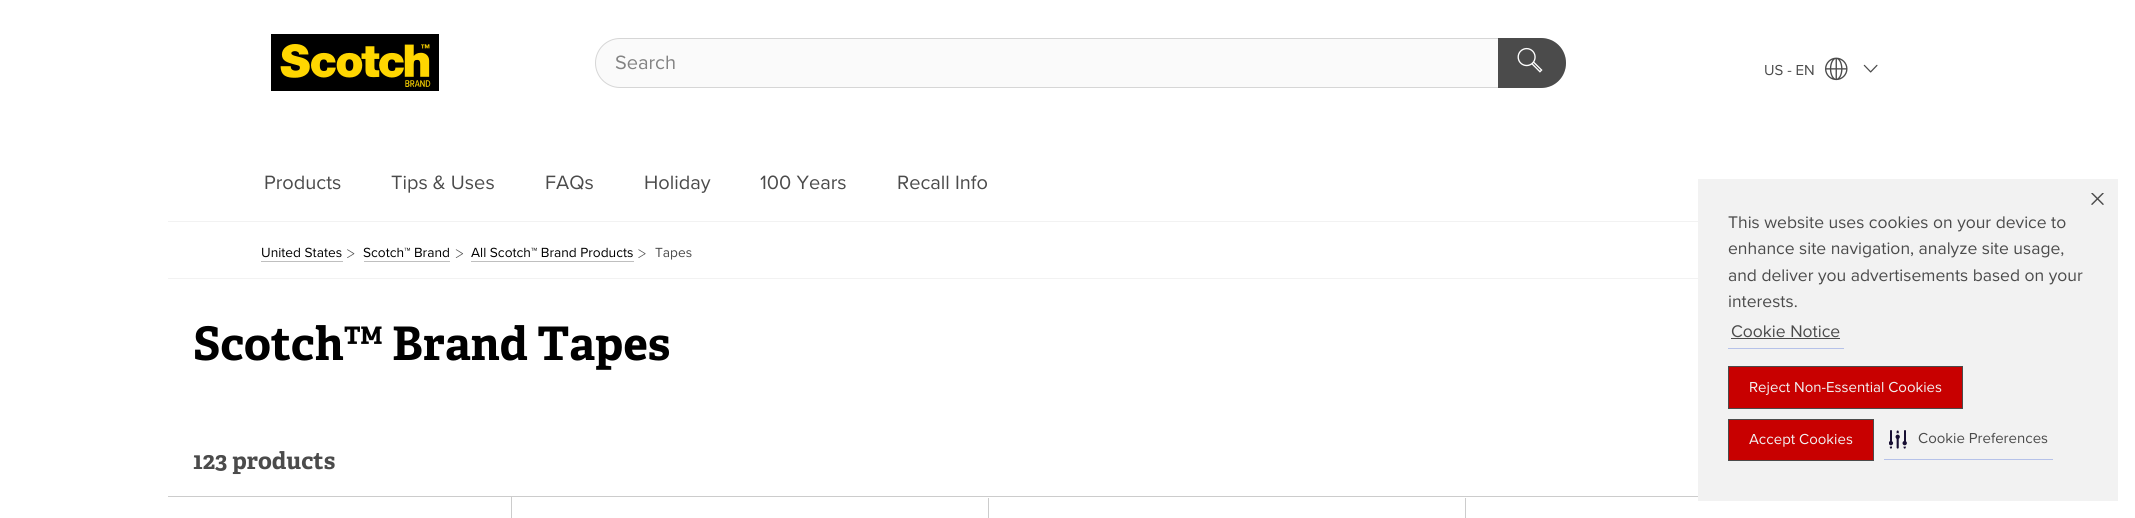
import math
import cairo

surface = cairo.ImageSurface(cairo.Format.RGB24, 2135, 518)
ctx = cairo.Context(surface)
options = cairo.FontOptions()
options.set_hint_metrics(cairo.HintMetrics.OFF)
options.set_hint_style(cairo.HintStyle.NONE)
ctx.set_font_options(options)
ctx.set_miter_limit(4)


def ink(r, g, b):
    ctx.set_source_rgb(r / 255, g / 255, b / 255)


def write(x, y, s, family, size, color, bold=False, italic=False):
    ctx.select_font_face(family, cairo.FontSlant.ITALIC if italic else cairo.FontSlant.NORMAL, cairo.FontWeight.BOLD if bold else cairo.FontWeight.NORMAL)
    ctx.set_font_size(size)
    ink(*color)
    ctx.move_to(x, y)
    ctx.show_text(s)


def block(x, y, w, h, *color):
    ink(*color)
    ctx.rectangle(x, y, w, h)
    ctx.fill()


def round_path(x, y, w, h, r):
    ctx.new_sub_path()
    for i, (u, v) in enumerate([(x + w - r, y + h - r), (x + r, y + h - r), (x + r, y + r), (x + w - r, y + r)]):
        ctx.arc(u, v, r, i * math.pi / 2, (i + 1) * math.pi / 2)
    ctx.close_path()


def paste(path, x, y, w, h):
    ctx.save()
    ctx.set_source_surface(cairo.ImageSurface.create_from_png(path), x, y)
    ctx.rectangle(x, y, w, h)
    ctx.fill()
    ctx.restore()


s1 = dict(family="Proxima Nova", size=20, color=(131, 131, 131))
s2 = dict(family="Proxima Nova", size=15, color=(75, 75, 75))
s3 = dict(family="Proxima Nova", size=20, color=(75, 75, 75))
s4 = dict(family="Proxima Nova", size=13.75, color=(0, 0, 0))
s5 = dict(family="Proxima Nova", size=13.75, color=(75, 75, 75))
s6 = dict(family="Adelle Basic", size=46.25, color=(0, 0, 0), bold=True)
s7 = dict(family="Adelle Basic", size=23.75, color=(75, 75, 75), bold=True)
s8 = dict(family="Proxima Nova", size=17.5, color=(75, 75, 75))
s9 = dict(family="Proxima Nova", size=15, color=(242, 242, 242))

ink(255, 255, 255)
ctx.paint()
block(168, 221, 1530, 1, 242, 242, 242)
paste("pic1.png", 271, 34, 168, 57)
ink(250, 250, 250)
round_path(595.5, 38.5, 970, 49, 24.5)
ctx.fill_preserve()
ink(214, 214, 214)
ctx.set_line_width(1)
ctx.stroke()
write(615, 69, "Search", **s1)
ink(75, 75, 75)
ctx.new_path()
ctx.move_to(1498, 38)
ctx.line_to(1541, 38)
ctx.curve_to(1555, 38, 1566, 49, 1566, 63)
ctx.curve_to(1566, 77, 1555, 88, 1541, 88)
ctx.line_to(1498, 88)
ctx.close_path()
ctx.fill()
paste("pic2.png", 1517, 47, 26, 26)
write(1764, 75, "US - EN", **s2)
paste("pic3.png", 1825, 57, 23, 24)
paste("pic4.png", 1863, 64, 15, 9)
write(264, 189, "Products", **s3)
write(391, 189, "Tips & Uses", **s3)
write(545, 189, "FAQs", **s3)
write(644, 189, "Holiday", **s3)
write(760, 189, "100 Years", **s3)
write(897, 189, "Recall Info", **s3)
block(168, 278, 1530, 1, 242, 242, 242)
write(261, 257, "United States", **s4)
block(261, 261, 82, 1, 191, 191, 191)
paste("pic5.png", 347, 249, 8, 9)
write(363, 257, "Scotch™ Brand", **s4)
block(364, 261, 86, 1, 191, 191, 191)
paste("pic6.png", 455, 249, 9, 9)
write(471, 257, "All Scotch™ Brand Products", **s4)
block(471, 261, 163, 1, 191, 191, 191)
paste("pic7.png", 638, 249, 8, 9)
write(655, 257, "Tapes", **s5)
write(193, 360, "Scotch™ Brand Tapes", **s6)
write(193, 469, "123 products", **s7)
block(168, 496, 1530, 1, 204, 204, 204)
block(988, 498, 1, 20, 204, 204, 204)
block(1465, 498, 1, 20, 204, 204, 204)
block(511, 496, 1, 22, 204, 204, 204)
block(1698, 179, 420, 322, 242, 242, 242)
write(1728, 228, "This website uses cookies on your device to", **s8)
write(1728, 254, "enhance site navigation, analyze site usage,", **s8)
write(1728, 281, "and deliver you advertisements based on your", **s8)
write(1728, 307, "interests.", **s8)
block(1728, 348, 116, 1, 182, 194, 233)
write(1731, 337, "Cookie Notice", **s8)
block(1731, 338, 109, 1, 75, 75, 75)
paste("pic8.png", 2091, 193, 13, 12)
ink(200, 0, 0)
ctx.rectangle(1728.5, 366.5, 234, 42)
ctx.fill_preserve()
ink(75, 75, 75)
ctx.stroke()
write(1749, 392, "Reject Non-Essential Cookies", **s9)
ink(200, 0, 0)
ctx.rectangle(1728.5, 419.5, 145, 41)
ctx.fill_preserve()
ink(75, 75, 75)
ctx.stroke()
write(1749, 444, "Accept Cookies", **s9)
block(1884, 459, 169, 1, 182, 194, 233)
paste("pic9.png", 1889, 430, 18, 19)
write(1918, 443, "Cookie Preferences", **s2)
surface.write_to_png("screenshot.png")
